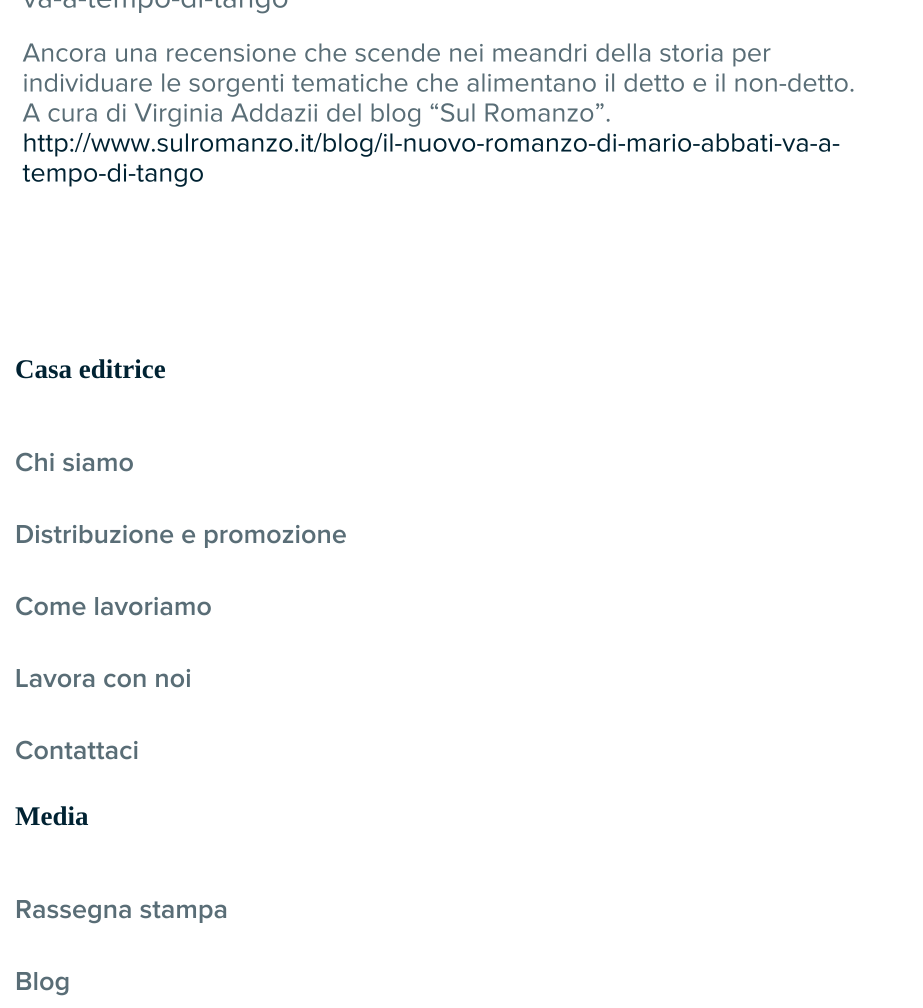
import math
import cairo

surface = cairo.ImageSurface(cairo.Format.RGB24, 923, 1008)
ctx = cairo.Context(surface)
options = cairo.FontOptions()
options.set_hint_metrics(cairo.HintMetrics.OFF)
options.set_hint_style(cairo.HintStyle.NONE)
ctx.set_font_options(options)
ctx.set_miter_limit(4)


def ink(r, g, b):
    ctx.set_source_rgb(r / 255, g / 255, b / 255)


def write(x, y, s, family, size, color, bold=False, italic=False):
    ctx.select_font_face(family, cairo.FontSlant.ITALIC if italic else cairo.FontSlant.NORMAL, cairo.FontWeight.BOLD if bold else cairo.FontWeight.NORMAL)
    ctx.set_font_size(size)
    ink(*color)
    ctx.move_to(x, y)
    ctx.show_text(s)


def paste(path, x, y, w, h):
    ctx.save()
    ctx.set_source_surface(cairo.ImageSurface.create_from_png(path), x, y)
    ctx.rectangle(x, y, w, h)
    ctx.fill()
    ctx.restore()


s1 = dict(family="Liberation Serif", size=27, color=(0, 34, 50), bold=True)

ink(255, 255, 255)
ctx.paint()
paste("pic1.png", 25, 0, 263, 14)
paste("pic2.png", 22, 43, 749, 24)
paste("pic3.png", 24, 73, 830, 24)
paste("pic4.png", 22, 103, 588, 24)
paste("pic5.png", 24, 132, 816, 25)
paste("pic6.png", 22, 163, 181, 24)
write(15, 378, "Casa editrice", **s1)
paste("pic7.png", 16, 452, 117, 20)
paste("pic8.png", 16, 524, 330, 24)
paste("pic9.png", 16, 596, 195, 20)
paste("pic10.png", 16, 668, 175, 20)
paste("pic11.png", 16, 740, 122, 20)
write(15, 825, "Media", **s1)
paste("pic12.png", 16, 900, 211, 24)
paste("pic13.png", 16, 972, 53, 24)
surface.write_to_png("screenshot.png")
